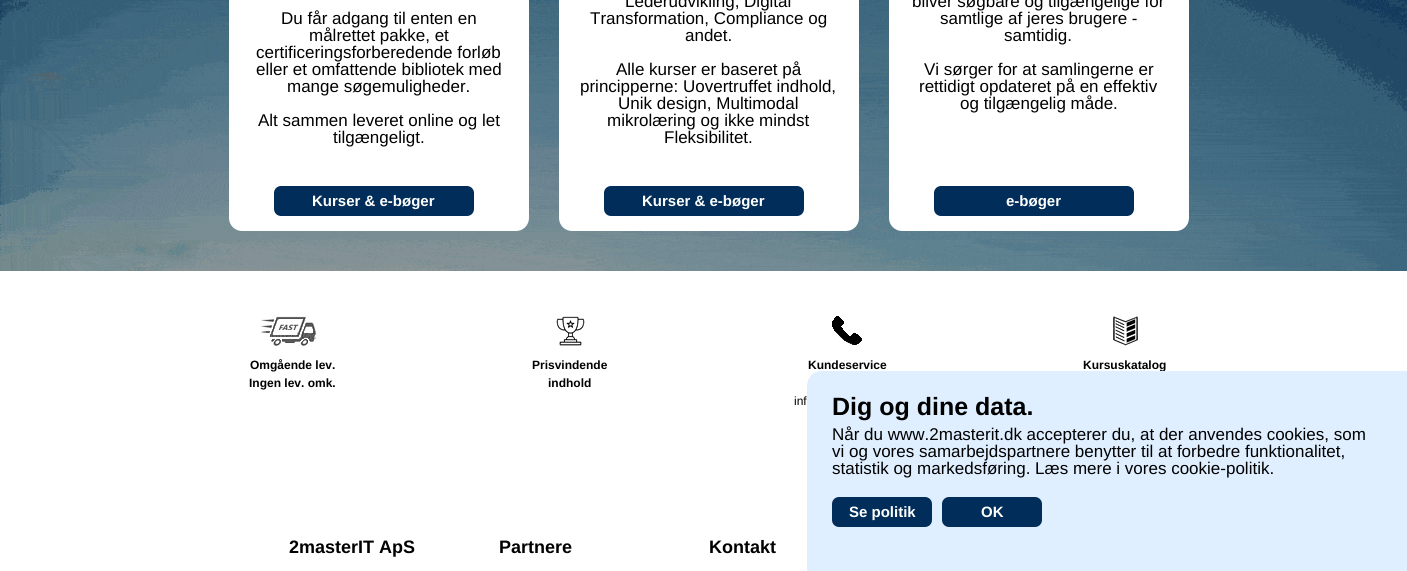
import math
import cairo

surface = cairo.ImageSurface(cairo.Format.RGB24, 1407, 571)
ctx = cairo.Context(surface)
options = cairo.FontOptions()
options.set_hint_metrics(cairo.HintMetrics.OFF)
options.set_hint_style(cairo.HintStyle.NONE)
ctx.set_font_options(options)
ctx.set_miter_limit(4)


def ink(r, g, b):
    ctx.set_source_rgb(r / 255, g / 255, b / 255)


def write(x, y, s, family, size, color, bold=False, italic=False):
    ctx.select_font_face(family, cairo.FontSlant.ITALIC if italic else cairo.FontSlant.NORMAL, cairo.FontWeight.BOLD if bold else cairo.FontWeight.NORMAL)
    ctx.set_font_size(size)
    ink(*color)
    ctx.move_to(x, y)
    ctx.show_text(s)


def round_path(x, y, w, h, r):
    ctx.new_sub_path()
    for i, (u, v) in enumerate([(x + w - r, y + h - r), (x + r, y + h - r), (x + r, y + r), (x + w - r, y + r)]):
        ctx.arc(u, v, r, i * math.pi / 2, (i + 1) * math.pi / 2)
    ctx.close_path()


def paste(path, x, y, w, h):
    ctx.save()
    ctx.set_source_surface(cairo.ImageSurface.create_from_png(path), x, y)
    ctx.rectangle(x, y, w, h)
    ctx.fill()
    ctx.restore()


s1 = dict(family="Liberation Sans", size=17, color=(0, 0, 0))
s2 = dict(family="Liberation Sans", size=15, color=(255, 255, 255), bold=True)
s3 = dict(family="Liberation Sans", size=12, color=(0, 0, 0), bold=True)
s4 = dict(family="Liberation Sans", size=12, color=(0, 0, 0))
s5 = dict(family="Liberation Sans", size=25, color=(0, 0, 0), bold=True)
s6 = dict(family="Liberation Sans", size=18, color=(0, 0, 0), bold=True)

ink(255, 255, 255)
ctx.paint()
paste("pic1.png", 0, 0, 1407, 271)
ink(255, 255, 255)
round_path(229, -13, 300, 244, 13)
ctx.fill()
write(281, 24, "Du får adgang til enten en", **s1)
write(309, 41, "målrettet pakke, et", **s1)
write(256, 58, "certificeringsforberedende forløb", **s1)
write(256, 75, "eller et omfattende bibliotek med", **s1)
write(287, 92, "mange søgemuligheder.", **s1)
write(258, 126, "Alt sammen leveret online og let", **s1)
write(333, 143, "tilgængeligt.", **s1)
ink(0, 45, 89)
round_path(274, 186, 200, 30, 7)
ctx.fill()
write(312, 206, "Kurser & e-bøger", **s2)
round_path(559, -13, 300, 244, 13)
ctx.fill()
write(625, 7, "Lederudvikling, Digital", **s1)
write(590, 24, "Transformation, Compliance og", **s1)
write(685, 41, "andet.", **s1)
write(616, 75, "Alle kurser er baseret på", **s1)
write(580, 92, "principperne: Uovertruffet indhold,", **s1)
write(618, 109, "Unik design, Multimodal", **s1)
write(607, 126, "mikrolæring og ikke mindst", **s1)
write(664, 143, "Fleksibilitet.", **s1)
ink(0, 45, 89)
round_path(604, 186, 200, 30, 7)
ctx.fill()
write(642, 206, "Kurser & e-bøger", **s2)
round_path(889, -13, 300, 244, 13)
ctx.fill()
write(912, 7, "bliver søgbare og tilgængelige for", **s1)
write(940, 24, "samtlige af jeres brugere -", **s1)
write(1004, 41, "samtidig.", **s1)
write(924, 75, "Vi sørger for at samlingerne er", **s1)
write(919, 92, "rettidigt opdateret på en effektiv", **s1)
write(960, 109, "og tilgængelig måde.", **s1)
ink(0, 45, 89)
round_path(934, 186, 200, 30, 7)
ctx.fill()
write(1006, 206, "e-bøger", **s2)
paste("pic2.png", 261, 316, 56, 30)
write(250, 369, "Omgående lev.", **s3)
write(249, 387, "Ingen lev. omk.", **s3)
paste("pic3.png", 556, 316, 29, 30)
write(532, 369, "Prisvindende", **s3)
write(548, 387, "indhold", **s3)
paste("pic4.png", 832, 316, 30, 29)
write(808, 369, "Kundeservice", **s3)
write(794, 405, "inf", **s4)
paste("pic5.png", 1113, 316, 25, 30)
write(1083, 369, "Kursuskatalog", **s3)
ink(223, 239, 255)
ctx.new_path()
ctx.move_to(822, 371)
ctx.line_to(1407, 371)
ctx.line_to(1407, 571)
ctx.line_to(807, 571)
ctx.line_to(807, 386)
ctx.curve_to(807, 377.5, 813.5, 371, 822, 371)
ctx.close_path()
ctx.fill()
write(832, 415, "Dig og dine data.", **s5)
write(832, 440, "Når du www.2masterit.dk accepterer du, at der anvendes cookies, som", **s1)
write(832, 457, "vi og vores samarbejdspartnere benytter til at forbedre funktionalitet,", **s1)
write(832, 474, "statistik og markedsføring. Læs mere i vores cookie-politik.", **s1)
ink(0, 45, 89)
round_path(832, 497, 100, 30, 7)
ctx.fill()
write(849, 517, "Se politik", **s2)
ink(0, 45, 89)
round_path(942, 497, 100, 30, 7)
ctx.fill()
write(981, 517, "OK", **s2)
write(289, 553, "2masterIT ApS", **s6)
write(499, 553, "Partnere", **s6)
write(709, 553, "Kontakt", **s6)
surface.write_to_png("screenshot.png")
